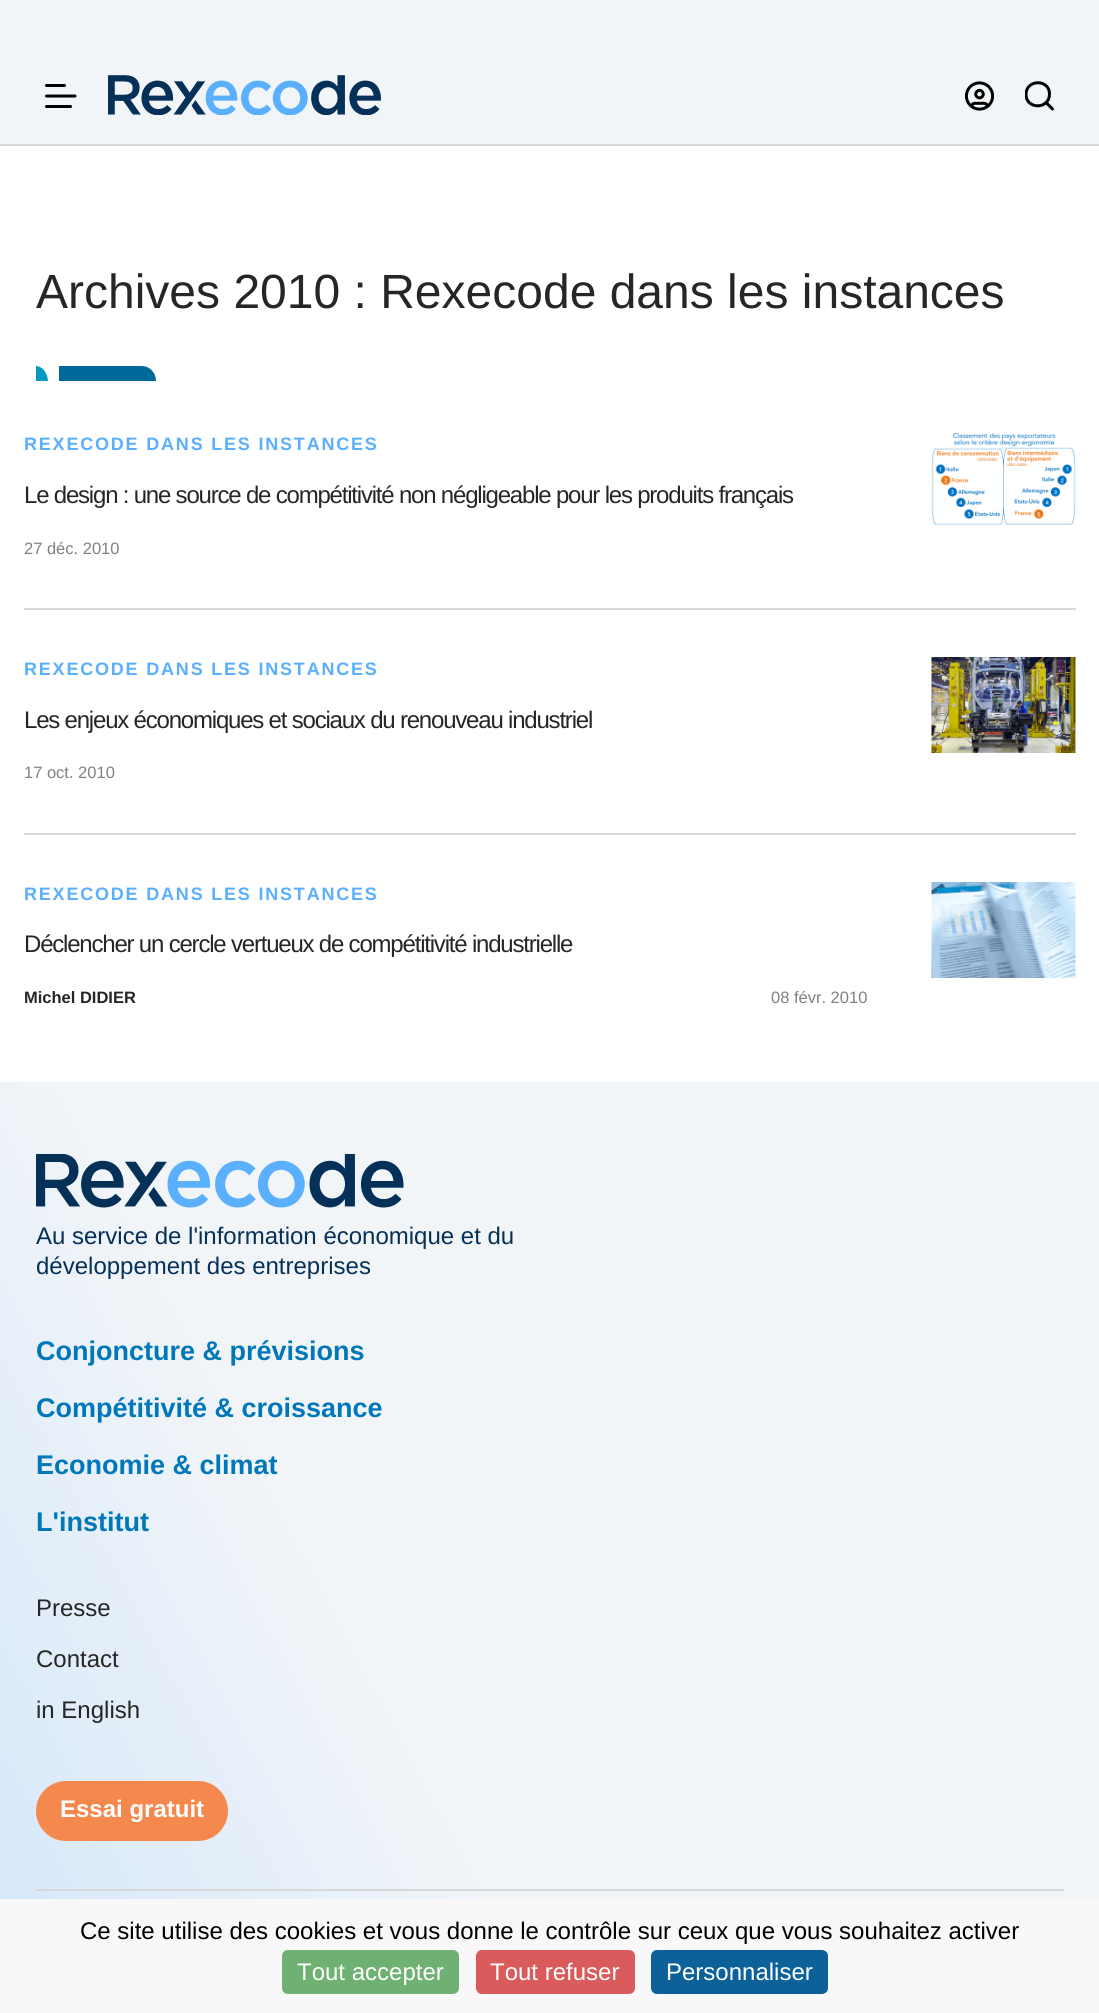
import math
import cairo

surface = cairo.ImageSurface(cairo.Format.RGB24, 1099, 2013)
ctx = cairo.Context(surface)
options = cairo.FontOptions()
options.set_hint_metrics(cairo.HintMetrics.OFF)
options.set_hint_style(cairo.HintStyle.NONE)
ctx.set_font_options(options)
ctx.set_miter_limit(4)


def ink(r, g, b):
    ctx.set_source_rgb(r / 255, g / 255, b / 255)


def write(x, y, s, family, size, color, bold=False, italic=False):
    ctx.select_font_face(family, cairo.FontSlant.ITALIC if italic else cairo.FontSlant.NORMAL, cairo.FontWeight.BOLD if bold else cairo.FontWeight.NORMAL)
    ctx.set_font_size(size)
    ink(*color)
    ctx.move_to(x, y)
    ctx.show_text(s)


def write_spaced(x, y, s, letter, word):
    ctx.move_to(x, y)
    for ch in s:
        ctx.show_text(ch)
        ctx.rel_move_to(letter + word * (ch == ' '), 0)


def block(x, y, w, h, *color):
    ink(*color)
    ctx.rectangle(x, y, w, h)
    ctx.fill()


def round_path(x, y, w, h, r):
    ctx.new_sub_path()
    for i, (u, v) in enumerate([(x + w - r, y + h - r), (x + r, y + h - r), (x + r, y + r), (x + w - r, y + r)]):
        ctx.arc(u, v, r, i * math.pi / 2, (i + 1) * math.pi / 2)
    ctx.close_path()


def paste(path, x, y, w, h):
    ctx.save()
    ctx.set_source_surface(cairo.ImageSurface.create_from_png(path), x, y)
    ctx.rectangle(x, y, w, h)
    ctx.fill()
    ctx.restore()


s1 = dict(family="Liberation Sans", size=48, color=(38, 38, 38))
s2 = dict(family="Liberation Sans", size=16.5, color=(128, 128, 128))
s3 = dict(family="Liberation Sans", size=16.5, color=(38, 38, 38), bold=True)
s4 = dict(family="Liberation Sans", size=24, color=(5, 48, 87))
s5 = dict(family="Liberation Sans", size=27, color=(0, 119, 184), bold=True)
s6 = dict(family="Liberation Sans", size=24, color=(38, 38, 38))
s7 = dict(family="Liberation Sans", size=24, color=(255, 255, 255), bold=True)
s8 = dict(family="Liberation Sans", size=24, color=(0, 0, 0))
s9 = dict(family="Liberation Sans", size=24, color=(255, 255, 255))

ink(255, 255, 255)
ctx.paint()
block(0, 0, 1099, 144, 242, 245, 248)
block(0, 144, 1099, 2, 216, 216, 216)
ctx.new_path()
ctx.move_to(46.5, 85.5)
ctx.line_to(64.5, 85.5)
ctx.move_to(46.5, 96)
ctx.line_to(75, 96)
ctx.move_to(46.5, 106.5)
ctx.line_to(70.5, 106.5)
ink(0, 0, 0)
ctx.set_line_width(3)
ctx.set_line_cap(cairo.LineCap.ROUND)
ctx.stroke()
paste("pic1.png", 108, 75, 273, 40)
paste("pic2.png", 965, 81, 30, 30)
ctx.save()
ctx.rectangle(1025, 81, 30, 30)
ctx.clip()
ctx.new_path()
ctx.move_to(1049.5, 94)
ctx.curve_to(1049.5, 110, 1025.5, 109.5, 1026, 94)
ctx.curve_to(1026.5, 79, 1049.5, 79, 1049.5, 94)
ctx.close_path()
ctx.set_line_join(cairo.LineJoin.ROUND)
ctx.stroke()
ctx.restore()
ctx.new_path()
ctx.move_to(1052.5, 109)
ctx.line_to(1046, 102.5)
ctx.set_line_join(cairo.LineJoin.ROUND)
ctx.stroke()
write(36, 308, "Archives 2010 : Rexecode dans les instances", **s1)
ctx.save()
ctx.rectangle(36, 366, 120, 15)
ctx.clip()
ink(0, 106, 154)
ctx.new_path()
ctx.move_to(59, 381)
ctx.line_to(59, 366)
ctx.line_to(129, 366)
ctx.curve_to(138, 366, 148, 364, 153, 372)
ctx.curve_to(155, 374, 156, 378, 156, 381)
ctx.close_path()
ctx.fill()
ctx.restore()
ink(2, 154, 193)
ctx.new_path()
ctx.move_to(36, 366)
ctx.curve_to(43.5, 366.5, 47.5, 374, 48, 381)
ctx.line_to(36, 381)
ctx.close_path()
ctx.fill()
ctx.select_font_face("Liberation Sans", cairo.FontSlant.NORMAL, cairo.FontWeight.BOLD)
ctx.set_font_size(18)
ink(90, 175, 255)
write_spaced(24, 450, "REXECODE DANS LES INSTANCES", 1.8, 0)
ctx.select_font_face("Liberation Sans")
ctx.set_font_size(24)
ink(38, 38, 38)
write_spaced(24, 503, "Le design : une source de compétitivité non négligeable pour les produits français", -1.2, 0)
write(24, 554, "27 déc. 2010", **s2)
paste("pic3.png", 931, 432, 145, 94)
block(24, 608, 1052, 2, 216, 216, 216)
ctx.select_font_face("Liberation Sans", cairo.FontSlant.NORMAL, cairo.FontWeight.BOLD)
ctx.set_font_size(18)
ink(90, 175, 255)
write_spaced(24, 675, "REXECODE DANS LES INSTANCES", 1.8, 0)
ctx.select_font_face("Liberation Sans")
ctx.set_font_size(24)
ink(38, 38, 38)
write_spaced(24, 728, "Les enjeux économiques et sociaux du renouveau industriel", -1.2, 0)
write(24, 778, "17 oct. 2010", **s2)
paste("pic4.png", 931, 657, 145, 96)
block(24, 833, 1052, 2, 216, 216, 216)
ctx.select_font_face("Liberation Sans", cairo.FontSlant.NORMAL, cairo.FontWeight.BOLD)
ctx.set_font_size(18)
ink(90, 175, 255)
write_spaced(24, 900, "REXECODE DANS LES INSTANCES", 1.8, 0)
ctx.select_font_face("Liberation Sans")
ctx.set_font_size(24)
ink(38, 38, 38)
write_spaced(24, 952, "Déclencher un cercle vertueux de compétitivité industrielle", -1.2, 0)
write(24, 1003, "Michel DIDIER", **s3)
write(771, 1003, "08 févr. 2010", **s2)
paste("pic5.png", 931, 882, 145, 96)
gradient = cairo.LinearGradient(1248, 1361, -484, 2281)
gradient.add_color_stop_rgba(0.46, 0.949, 0.961, 0.973, 1)
gradient.add_color_stop_rgba(1, 0.702, 0.843, 0.988, 1)
ctx.set_source(gradient)
ctx.rectangle(0, 1082, 1099, 817)
ctx.fill()
paste("pic6.png", 36, 1154, 368, 54)
write(36, 1244, "Au service de l'information économique et du", **s4)
write(36, 1274, "développement des entreprises", **s4)
write(36, 1360, "Conjoncture & prévisions", **s5)
write(36, 1417, "Compétitivité & croissance", **s5)
write(36, 1474, "Economie & climat", **s5)
write(36, 1531, "L'institut", **s5)
write(36, 1616, "Presse", **s6)
write(36, 1667, "Contact", **s6)
write(36, 1718, "in English", **s6)
ink(245, 137, 77)
round_path(36, 1781, 192, 60, 30)
ctx.fill()
write(60, 1817, "Essai gratuit", **s7)
block(36, 1889, 1028, 2, 216, 216, 216)
block(0, 1899, 1099, 114, 248, 248, 248)
write(80, 1939, "Ce site utilise des cookies et vous donne le contrôle sur ceux que vous souhaitez activer", **s8)
ink(111, 177, 114)
round_path(282, 1950, 177, 44, 6)
ctx.fill()
write(297, 1980, "Tout accepter", **s9)
ink(217, 91, 91)
round_path(476, 1950, 159, 44, 6)
ctx.fill()
write(490, 1980, "Tout refuser", **s9)
ink(11, 97, 152)
round_path(651, 1950, 177, 44, 6)
ctx.fill()
write(666, 1980, "Personnaliser", **s9)
surface.write_to_png("screenshot.png")
